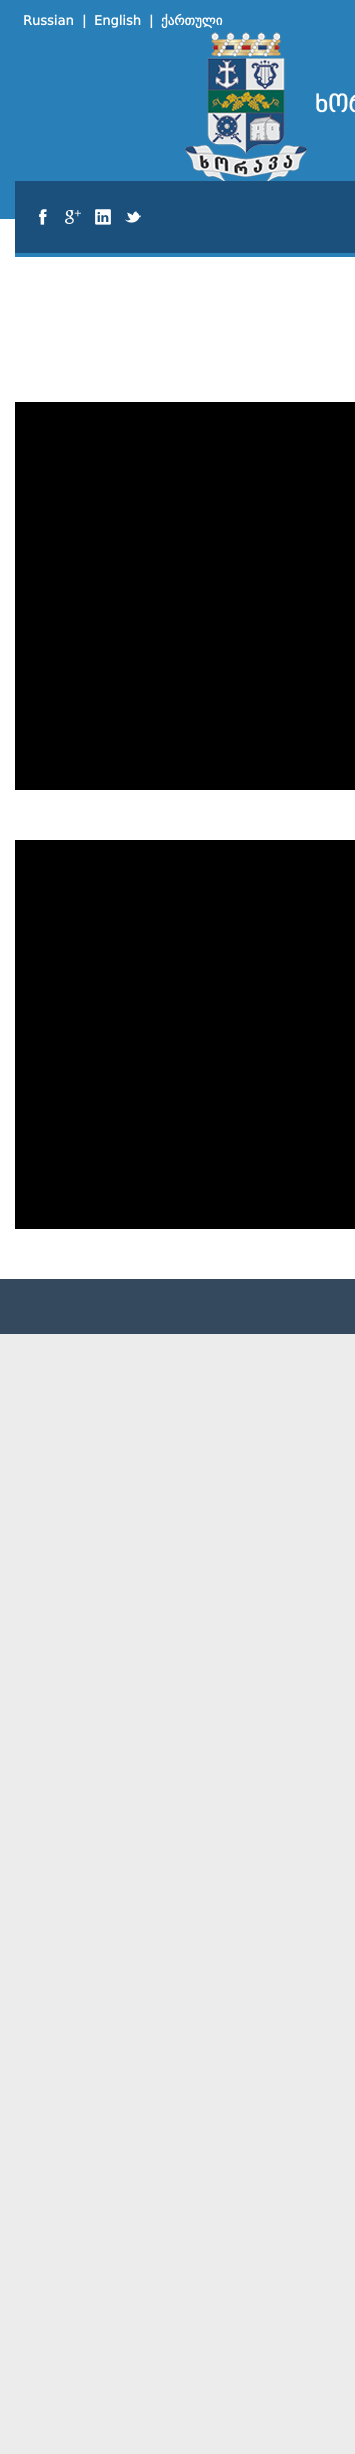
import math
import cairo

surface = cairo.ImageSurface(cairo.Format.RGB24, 355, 2454)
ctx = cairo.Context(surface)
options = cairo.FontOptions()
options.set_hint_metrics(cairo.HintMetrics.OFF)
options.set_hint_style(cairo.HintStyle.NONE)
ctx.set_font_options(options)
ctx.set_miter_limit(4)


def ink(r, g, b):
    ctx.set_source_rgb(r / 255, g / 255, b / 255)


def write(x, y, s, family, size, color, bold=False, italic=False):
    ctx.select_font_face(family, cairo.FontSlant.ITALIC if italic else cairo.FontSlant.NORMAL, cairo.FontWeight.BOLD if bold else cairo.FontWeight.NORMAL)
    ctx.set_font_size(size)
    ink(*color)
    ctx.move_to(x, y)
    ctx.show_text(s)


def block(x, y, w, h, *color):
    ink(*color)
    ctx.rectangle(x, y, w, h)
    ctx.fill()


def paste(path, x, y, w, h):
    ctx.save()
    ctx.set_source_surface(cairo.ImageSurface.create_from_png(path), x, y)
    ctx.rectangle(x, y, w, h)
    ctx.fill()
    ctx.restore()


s1 = dict(family="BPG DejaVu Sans", size=13, color=(255, 255, 255), bold=True)

ink(236, 236, 236)
ctx.paint()
block(0, 219, 355, 1060, 255, 255, 255)
block(0, 0, 355, 219, 41, 128, 185)
write(23, 25, "Russian", **s1)
write(82, 25, "|", **s1)
write(94, 25, "English", **s1)
write(149, 25, "|", **s1)
write(161, 25, "ქართული", **s1)
paste("pic1.png", 185, 32, 170, 149)
block(15, 181, 340, 72, 28, 80, 124)
block(15, 253, 340, 4, 41, 128, 185)
paste("pic2.png", 39, 209, 8, 16)
paste("pic3.png", 65, 210, 16, 14)
paste("pic4.png", 95, 209, 16, 16)
paste("pic5.png", 125, 211, 16, 12)
block(15, 402, 340, 388, 0, 0, 0)
block(15, 840, 340, 389, 0, 0, 0)
block(0, 1279, 355, 55, 52, 73, 94)
surface.write_to_png("screenshot.png")
